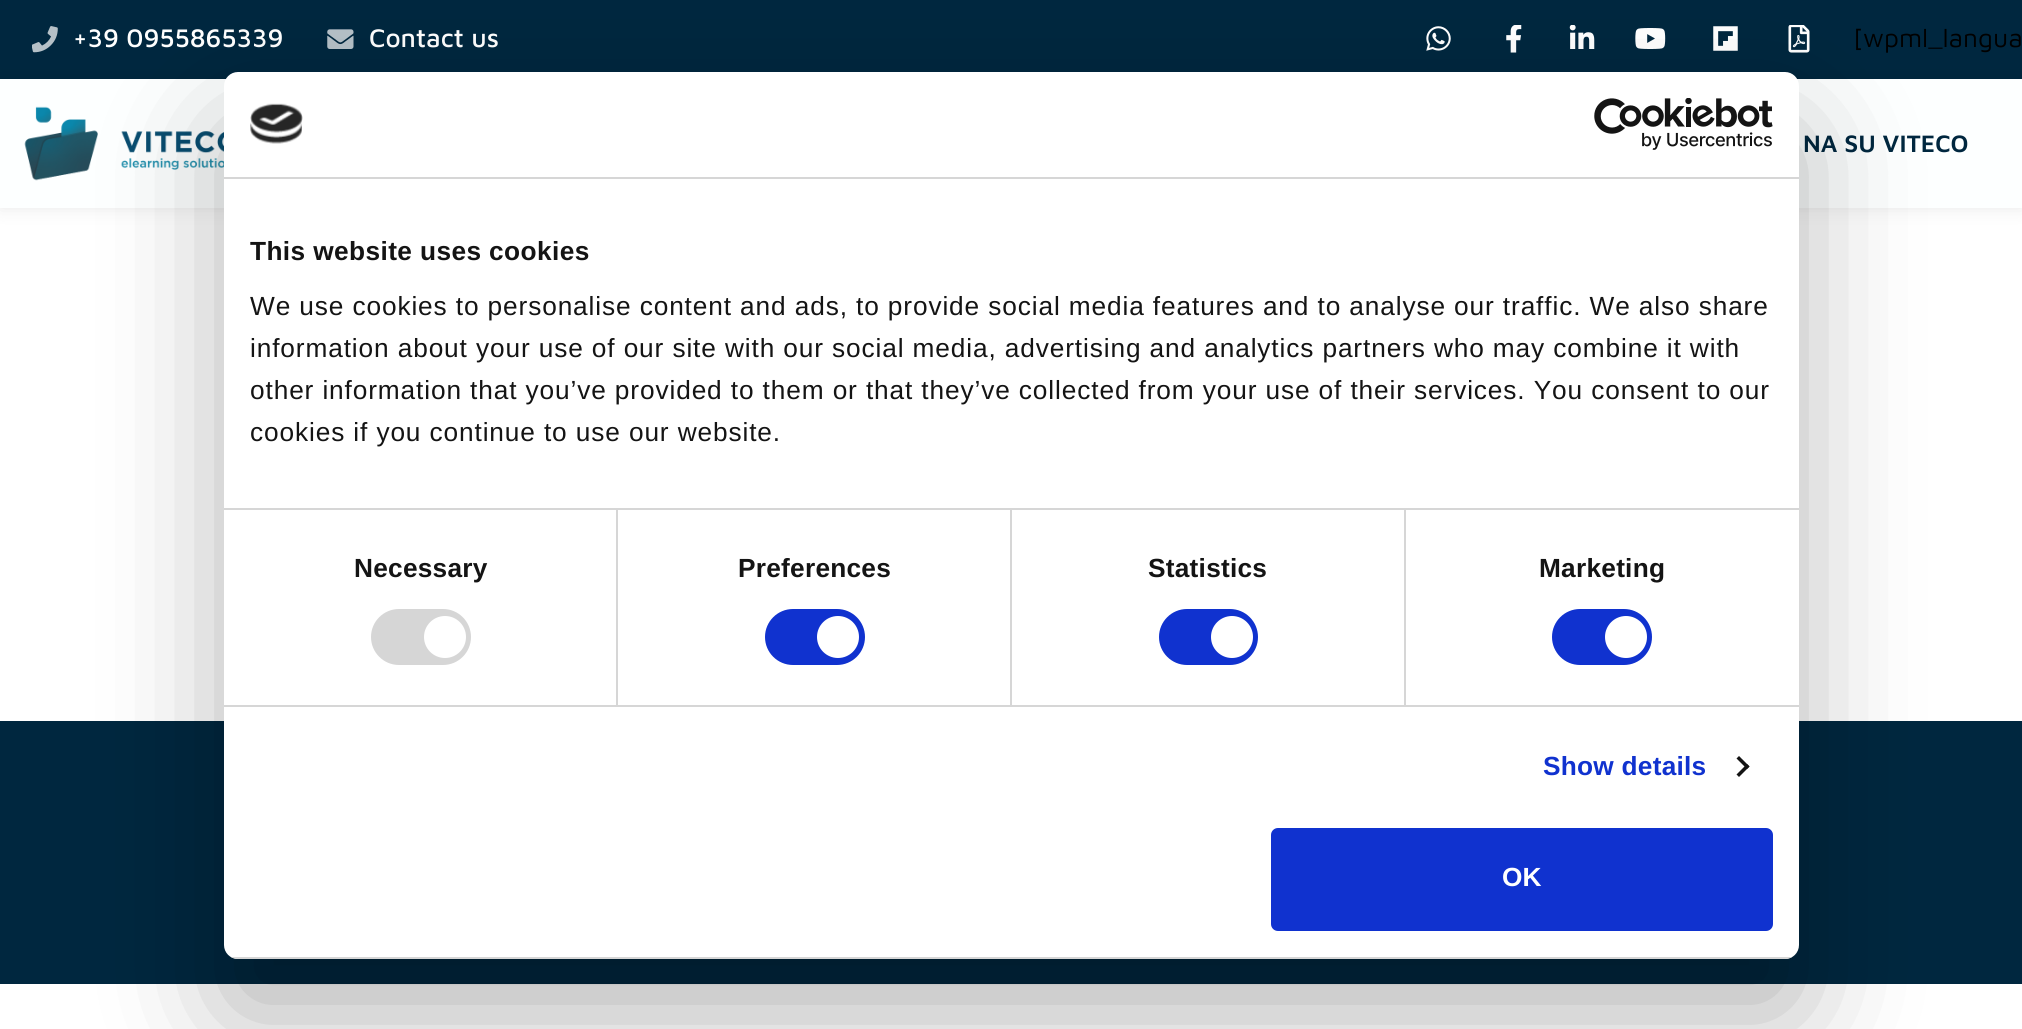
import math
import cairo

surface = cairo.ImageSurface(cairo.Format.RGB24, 2022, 1029)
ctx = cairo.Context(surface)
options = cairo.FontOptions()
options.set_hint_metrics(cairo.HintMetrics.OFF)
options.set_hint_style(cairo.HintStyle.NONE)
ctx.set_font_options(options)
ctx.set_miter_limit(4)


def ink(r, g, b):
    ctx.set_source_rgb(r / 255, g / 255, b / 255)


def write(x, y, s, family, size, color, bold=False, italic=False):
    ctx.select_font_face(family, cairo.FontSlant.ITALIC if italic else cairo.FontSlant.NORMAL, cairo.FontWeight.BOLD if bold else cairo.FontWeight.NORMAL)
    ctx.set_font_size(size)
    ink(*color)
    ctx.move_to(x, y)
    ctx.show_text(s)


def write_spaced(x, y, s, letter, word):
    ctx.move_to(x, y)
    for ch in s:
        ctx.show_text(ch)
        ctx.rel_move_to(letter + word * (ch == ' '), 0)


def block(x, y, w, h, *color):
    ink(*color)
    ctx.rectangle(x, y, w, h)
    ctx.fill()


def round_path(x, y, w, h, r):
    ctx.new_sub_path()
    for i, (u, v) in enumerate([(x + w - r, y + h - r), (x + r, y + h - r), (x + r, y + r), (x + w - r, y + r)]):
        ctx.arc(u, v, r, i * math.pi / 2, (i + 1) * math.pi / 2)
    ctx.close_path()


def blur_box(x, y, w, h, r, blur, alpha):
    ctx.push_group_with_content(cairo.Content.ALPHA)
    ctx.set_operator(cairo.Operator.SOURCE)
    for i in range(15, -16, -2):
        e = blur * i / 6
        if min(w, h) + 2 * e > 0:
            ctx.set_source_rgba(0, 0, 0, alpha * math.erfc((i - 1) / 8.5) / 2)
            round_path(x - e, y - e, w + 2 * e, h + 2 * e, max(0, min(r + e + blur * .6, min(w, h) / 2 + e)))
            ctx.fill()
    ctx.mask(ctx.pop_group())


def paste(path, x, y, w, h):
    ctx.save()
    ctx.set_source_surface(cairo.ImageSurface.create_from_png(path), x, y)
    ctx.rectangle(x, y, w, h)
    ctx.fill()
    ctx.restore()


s1 = dict(family="Maven Pro Medium", size=26.25, color=(255, 255, 255))
s2 = dict(family="Maven Pro", size=26.25, color=(0, 0, 0))
s3 = dict(family="Maven Pro SemiBold", size=24.5, color=(0, 39, 63))
s4 = dict(family="Liberation Sans", size=26.25, color=(255, 255, 255), bold=True)

ink(255, 255, 255)
ctx.paint()
block(0, 0, 2022, 79, 0, 39, 63)
paste("pic1.png", 32, 26, 26, 27)
write(73, 47, "+39 0955865339", **s1)
paste("pic2.png", 327, 29, 27, 20)
write(369, 47, "Contact us", **s1)
paste("pic3.png", 1426, 26, 25, 25)
paste("pic4.png", 1506, 25, 16, 28)
paste("pic5.png", 1569, 25, 26, 24)
paste("pic6.png", 1635, 28, 31, 21)
paste("pic7.png", 1713, 26, 25, 25)
paste("pic8.png", 1788, 25, 22, 28)
write(1853, 47, "[wpml_langua", **s2)
ink(0, 0, 0)
blur_box(0, 79, 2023, 129, 0, 9, 0.09)
block(0, 79, 2022, 129, 253, 255, 255)
paste("pic9.png", 24, 106, 200, 75)
write(1803, 152, "NA SU VITECO", **s3)
block(0, 721, 2022, 263, 0, 39, 63)
ink(0, 0, 0)
blur_box(224, 128, 1575, 887, 14, 59.5, 0.3)
ink(255, 255, 255)
round_path(224, 72, 1575, 887, 14)
ctx.fill()
block(224, 177, 1575, 2, 214, 214, 214)
paste("pic10.png", 250, 103, 53, 41)
paste("pic11.png", 1594, 98, 179, 52)
block(616, 509, 2, 196, 214, 214, 214)
block(1010, 509, 2, 196, 214, 214, 214)
block(1404, 509, 2, 196, 214, 214, 214)
block(224, 508, 1575, 2, 214, 214, 214)
ctx.select_font_face("Liberation Sans", cairo.FontSlant.NORMAL, cairo.FontWeight.BOLD)
ctx.set_font_size(26.25)
ink(20, 20, 20)
write_spaced(250, 260, "This website uses cookies", 0.4, 0)
ctx.select_font_face("Liberation Sans")
write_spaced(250, 315, "We use cookies to personalise content and ads, to provide social media features and to analyse our traffic. We also share", 0.88, 0)
write_spaced(250, 357, "information about your use of our site with our social media, advertising and analytics partners who may combine it with", 0.88, 0)
write_spaced(250, 399, "other information that you’ve provided to them or that they’ve collected from your use of their services. You consent to our", 0.88, 0)
write_spaced(250, 441, "cookies if you continue to use our website.", 0.88, 0)
block(224, 705, 1575, 2, 214, 214, 214)
ctx.select_font_face("Liberation Sans", cairo.FontSlant.NORMAL, cairo.FontWeight.BOLD)
ink(20, 20, 20)
write_spaced(354, 577, "Necessary", 0.25, 0)
ink(214, 214, 214)
round_path(371, 609, 100, 56, 28)
ctx.fill()
ink(255, 255, 255)
ctx.arc(445, 637, 21, 0, 2 * math.pi)
ctx.fill()
ink(20, 20, 20)
write_spaced(738, 577, "Preferences", 0.25, 0)
ink(16, 50, 207)
round_path(765, 609, 100, 56, 28)
ctx.fill()
ink(255, 255, 255)
ctx.arc(838, 637, 21, 0, 2 * math.pi)
ctx.fill()
ink(20, 20, 20)
write_spaced(1148, 577, "Statistics", 0.25, 0)
ink(16, 50, 207)
round_path(1159, 609, 99, 56, 28)
ctx.fill()
ink(255, 255, 255)
ctx.arc(1232, 637, 21, 0, 2 * math.pi)
ctx.fill()
ink(20, 20, 20)
write_spaced(1539, 577, "Marketing", 0.25, 0)
ink(16, 50, 207)
round_path(1552, 609, 100, 56, 28)
ctx.fill()
ink(255, 255, 255)
ctx.arc(1626, 637, 21, 0, 2 * math.pi)
ctx.fill()
ink(16, 50, 207)
write_spaced(1543, 775, "Show details", 0.25, 0)
ink(20, 20, 20)
ctx.new_path()
ctx.move_to(1739, 756)
ctx.line_to(1749.5, 766.5)
ctx.line_to(1747, 769)
ctx.line_to(1736.5, 758.5)
ctx.close_path()
ctx.fill()
ctx.new_path()
ctx.move_to(1747, 764)
ctx.line_to(1749.5, 766.5)
ctx.line_to(1739, 777)
ctx.line_to(1736.5, 774.5)
ctx.close_path()
ctx.fill()
ctx.save()
round_path(224, 72, 1575, 887, 14)
ctx.clip()
block(224, 957, 1575, 2, 214, 214, 214)
ctx.restore()
ink(16, 50, 207)
round_path(1273, 830, 498, 99, 5)
ctx.fill_preserve()
ctx.set_line_width(4)
ctx.stroke()
write(1502, 886, "OK", **s4)
surface.write_to_png("screenshot.png")
